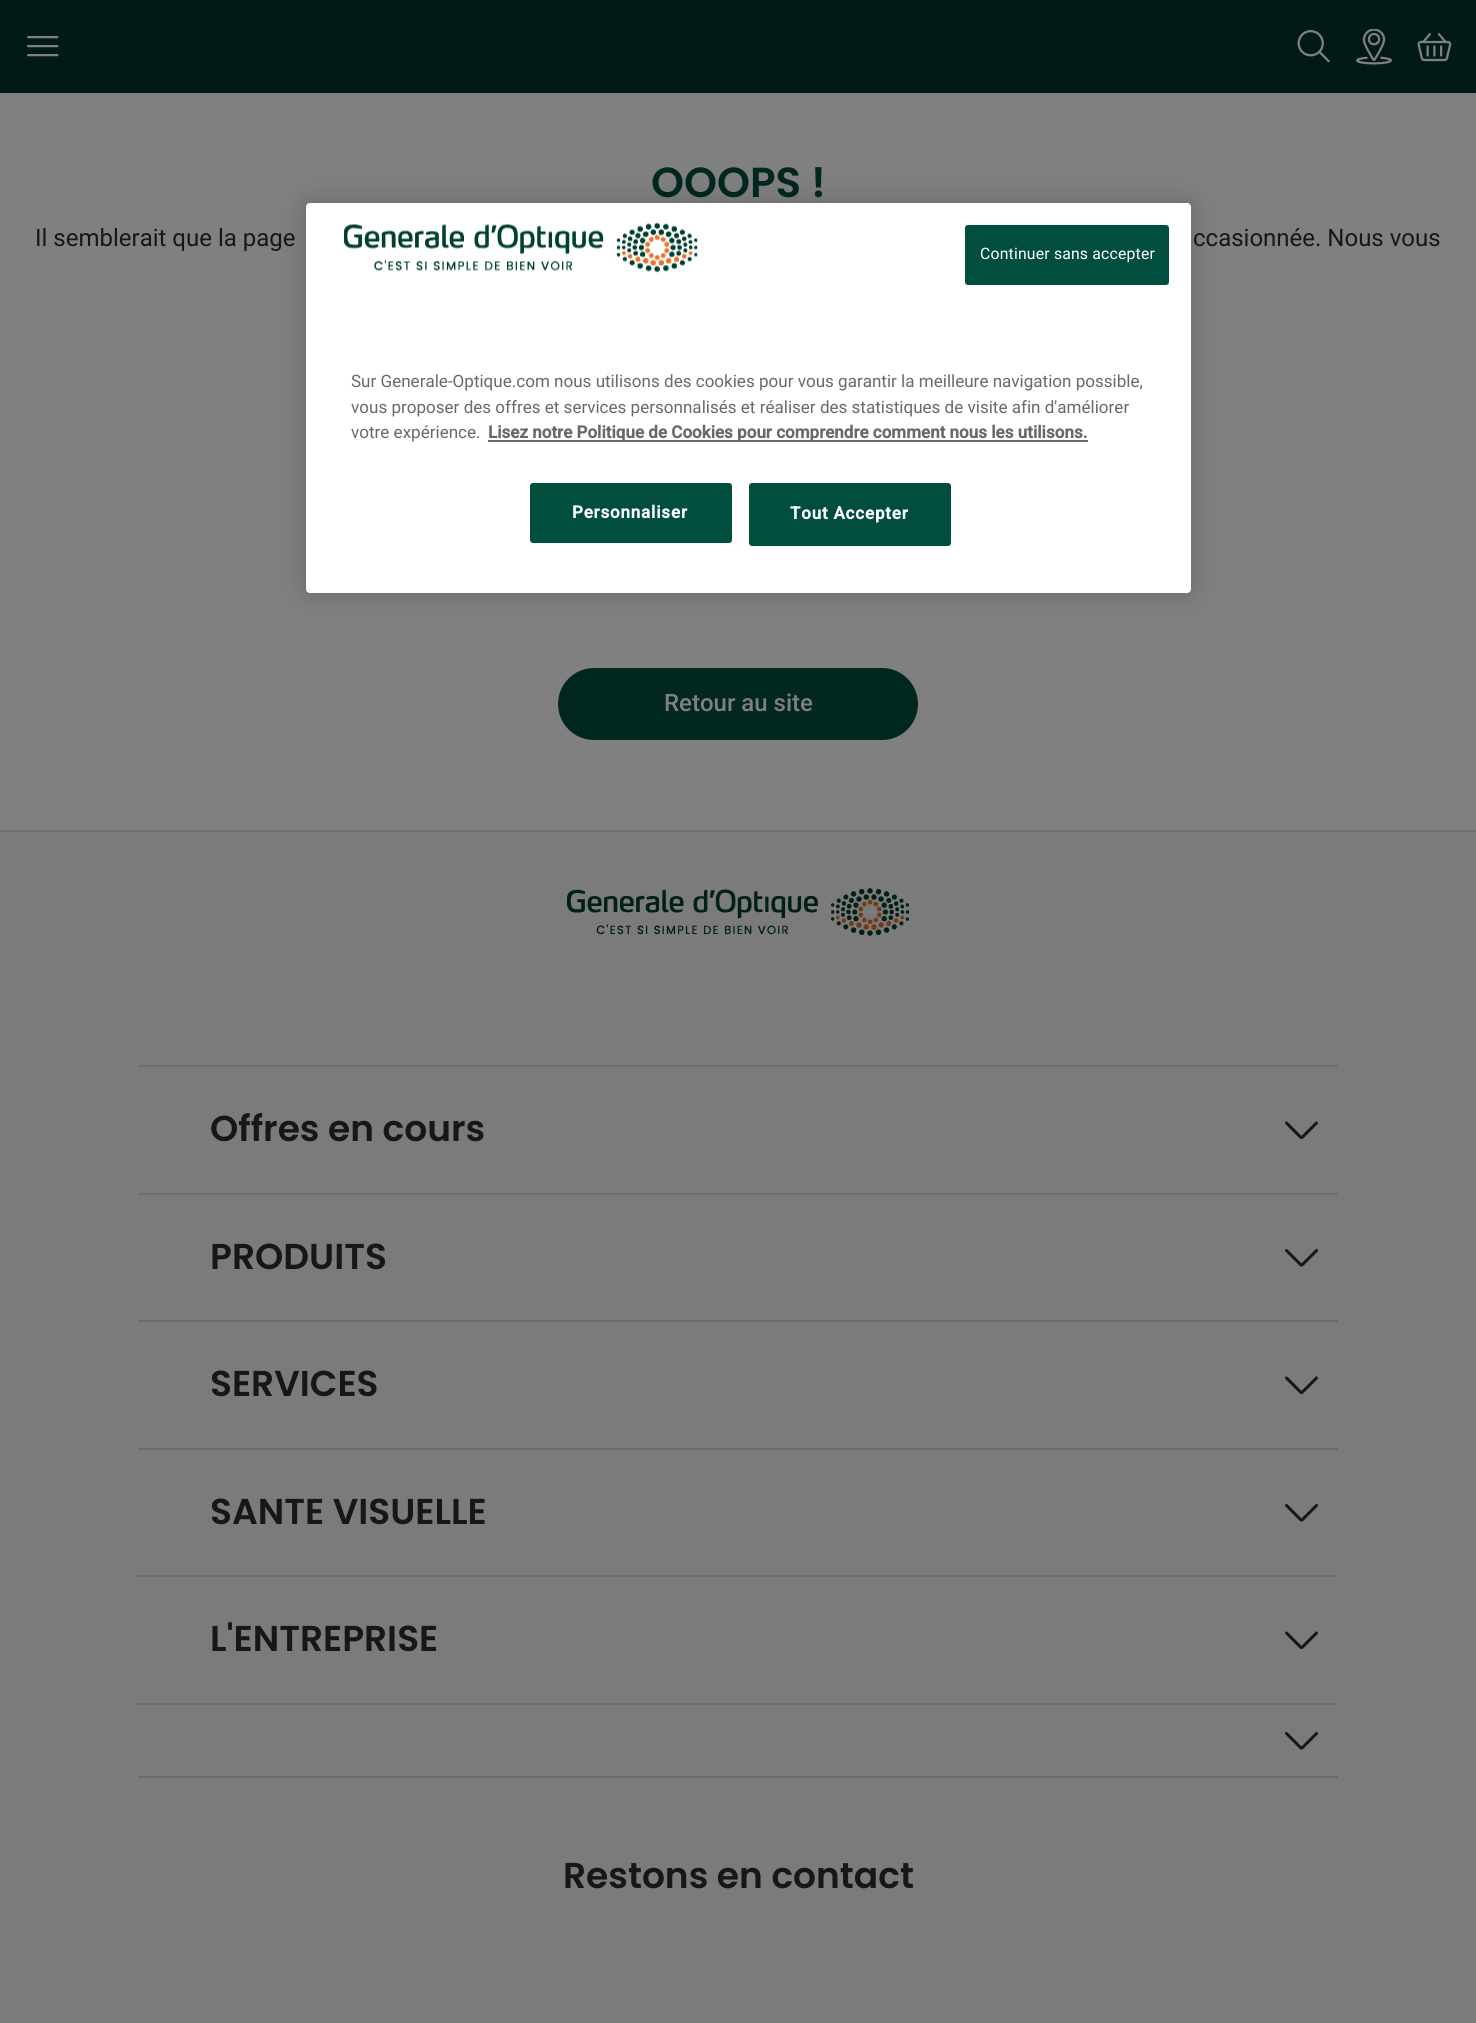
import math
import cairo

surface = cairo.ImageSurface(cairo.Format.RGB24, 1476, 2023)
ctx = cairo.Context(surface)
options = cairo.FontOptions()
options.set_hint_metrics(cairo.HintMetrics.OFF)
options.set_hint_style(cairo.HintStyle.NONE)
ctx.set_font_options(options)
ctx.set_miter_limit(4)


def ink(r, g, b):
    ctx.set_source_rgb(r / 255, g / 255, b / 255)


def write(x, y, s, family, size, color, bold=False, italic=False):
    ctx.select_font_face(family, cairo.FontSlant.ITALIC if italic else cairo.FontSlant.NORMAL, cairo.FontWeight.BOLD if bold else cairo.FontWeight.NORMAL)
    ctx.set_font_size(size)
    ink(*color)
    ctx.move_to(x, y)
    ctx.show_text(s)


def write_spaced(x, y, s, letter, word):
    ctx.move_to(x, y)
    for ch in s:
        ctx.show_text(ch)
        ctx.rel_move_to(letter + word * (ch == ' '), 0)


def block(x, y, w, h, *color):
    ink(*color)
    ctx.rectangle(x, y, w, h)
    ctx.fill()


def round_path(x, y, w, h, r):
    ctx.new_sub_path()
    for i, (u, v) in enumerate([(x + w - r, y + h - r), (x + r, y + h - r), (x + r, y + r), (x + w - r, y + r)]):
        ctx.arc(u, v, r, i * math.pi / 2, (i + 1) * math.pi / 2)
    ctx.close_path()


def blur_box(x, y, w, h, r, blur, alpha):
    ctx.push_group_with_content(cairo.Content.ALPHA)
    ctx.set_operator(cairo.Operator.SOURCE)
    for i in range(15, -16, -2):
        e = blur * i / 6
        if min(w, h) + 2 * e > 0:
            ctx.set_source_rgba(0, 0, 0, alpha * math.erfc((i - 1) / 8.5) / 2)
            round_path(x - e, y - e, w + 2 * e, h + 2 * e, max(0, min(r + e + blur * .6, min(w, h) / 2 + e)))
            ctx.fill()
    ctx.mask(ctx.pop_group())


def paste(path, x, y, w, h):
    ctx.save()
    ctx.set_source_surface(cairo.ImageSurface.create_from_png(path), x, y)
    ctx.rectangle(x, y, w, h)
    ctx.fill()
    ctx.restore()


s1 = dict(family="Poppins SemiBold", size=42, color=(1, 39, 32))
s2 = dict(family="Roboto", size=24, color=(22, 23, 25))
s3 = dict(family="Roboto Medium", size=24, color=(128, 128, 128))
s4 = dict(family="Poppins SemiBold", size=36, color=(22, 23, 25))
s5 = dict(family="Roboto", size=17.05, color=(105, 105, 105))
s6 = dict(family="Roboto", size=17.05, color=(105, 105, 105), bold=True)

ink(128, 128, 128)
ctx.paint()
block(0, 0, 1476, 93, 1, 26, 21)
paste("pic1.png", 27, 36, 32, 21)
paste("pic2.png", 1297, 30, 33, 33)
paste("pic3.png", 1356, 29, 36, 36)
paste("pic4.png", 1417, 33, 35, 29)
write(651, 197, "OOOPS !", **s1)
write(35, 246, "Il semblerait que la page", **s2)
write(1193, 246, "ccasionnée. Nous vous", **s2)
ink(1, 39, 32)
round_path(558, 668, 360, 72, 36)
ctx.fill()
write(664, 711, "Retour au site", **s3)
block(0, 832, 1476, 1191, 123, 123, 124)
block(0, 830, 1476, 2, 108, 109, 111)
paste("pic5.png", 567, 888, 342, 48)
block(138, 1065, 1200, 2, 108, 109, 111)
block(138, 1193, 1200, 2, 108, 109, 111)
write(210, 1141, "Offres en cours", **s4)
paste("pic6.png", 1285, 1121, 33, 19)
block(138, 1320, 1200, 2, 108, 109, 111)
write(210, 1269, "PRODUITS", **s4)
paste("pic7.png", 1285, 1249, 33, 18)
block(138, 1448, 1200, 2, 108, 109, 111)
write(210, 1396, "SERVICES", **s4)
paste("pic6.png", 1285, 1376, 33, 19)
block(138, 1575, 1200, 2, 108, 109, 111)
write(210, 1524, "SANTE VISUELLE", **s4)
paste("pic7.png", 1285, 1504, 33, 18)
block(138, 1703, 1200, 2, 108, 109, 111)
write(210, 1651, "L'ENTREPRISE", **s4)
paste("pic6.png", 1285, 1631, 33, 19)
block(138, 1776, 1200, 2, 108, 109, 111)
paste("pic7.png", 1285, 1732, 33, 18)
write(563, 1888, "Restons en contact", **s4)
ink(0, 0, 0)
blur_box(306, 203, 885, 390, 4, 13.5, 0.2)
ink(255, 255, 255)
round_path(306, 203, 885, 390, 4)
ctx.fill()
paste("pic8.png", 344, 222, 354, 51)
ink(1, 78, 63)
round_path(965, 225, 204, 60, 3)
ctx.fill()
ctx.select_font_face("Roboto")
ctx.set_font_size(15.75)
ink(255, 255, 255)
write_spaced(980, 259, "Continuer sans accepter", 0.2, 0)
write(351, 387, "Sur Generale-Optique.com nous utilisons des cookies pour vous garantir la meilleure navigation possible,", **s5)
write(351, 413, "vous proposer des offres et services personnalisés et réaliser des statistiques de visite afin d'améliorer", **s5)
write(351, 438, "votre expérience.", **s5)
block(488, 440, 600, 2, 105, 105, 105)
write(488, 438, "Lisez notre Politique de Cookies pour comprendre comment nous les utilisons.", **s6)
ink(1, 78, 63)
round_path(530, 483, 202, 60, 3)
ctx.fill()
ink(255, 255, 255)
write_spaced(572, 518, "Personnaliser", 0.8, 0)
ink(1, 78, 63)
round_path(750, 484, 200, 61, 2)
ctx.fill_preserve()
ctx.stroke()
ink(255, 255, 255)
write_spaced(790, 519, "Tout Accepter", 0.8, 0)
surface.write_to_png("screenshot.png")
